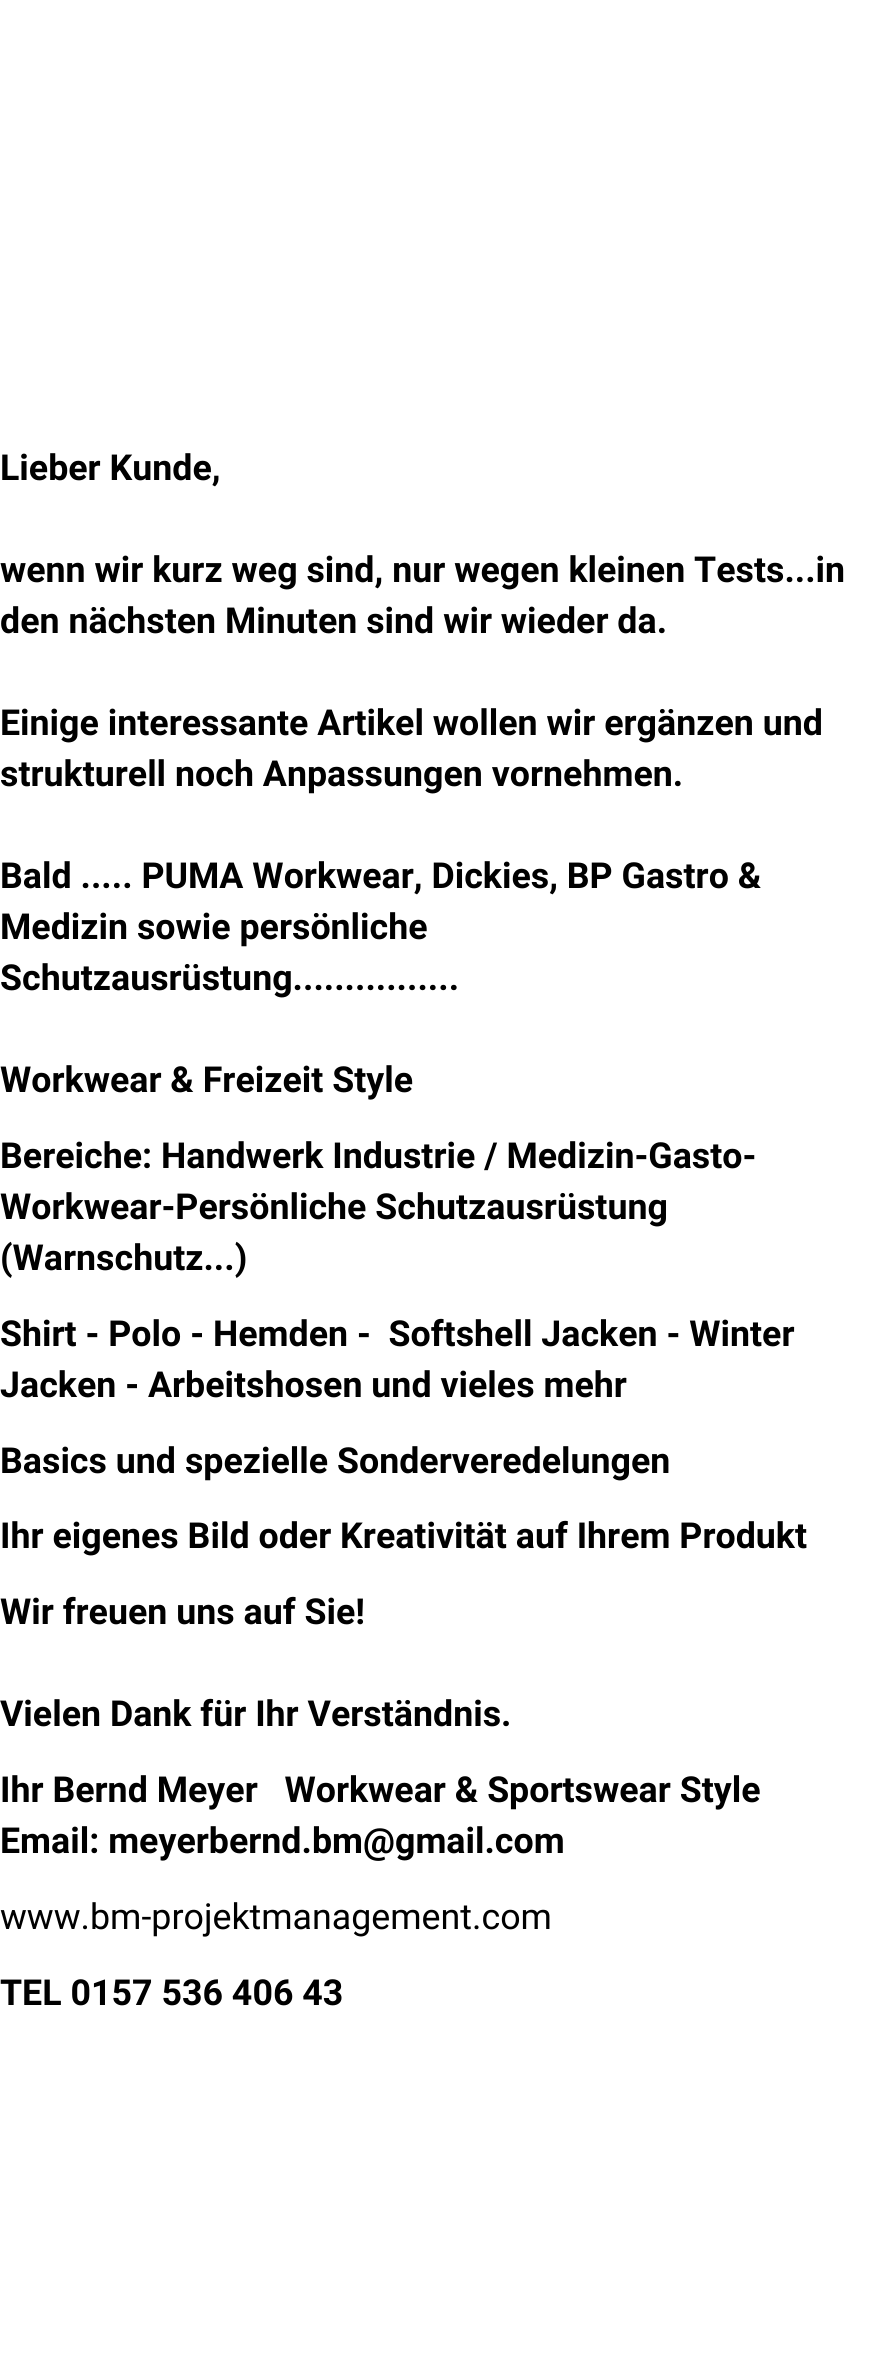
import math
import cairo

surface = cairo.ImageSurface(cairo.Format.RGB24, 875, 2366)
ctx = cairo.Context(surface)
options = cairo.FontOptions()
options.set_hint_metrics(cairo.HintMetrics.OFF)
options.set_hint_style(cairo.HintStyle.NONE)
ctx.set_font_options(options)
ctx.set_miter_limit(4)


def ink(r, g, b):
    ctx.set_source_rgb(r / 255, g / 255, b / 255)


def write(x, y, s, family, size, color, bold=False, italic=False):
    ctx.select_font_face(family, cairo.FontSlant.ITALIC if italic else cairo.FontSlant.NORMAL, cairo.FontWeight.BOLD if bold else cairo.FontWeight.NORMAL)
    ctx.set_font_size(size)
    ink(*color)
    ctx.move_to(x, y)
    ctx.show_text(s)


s1 = dict(family="Roboto", size=35.75, color=(0, 0, 0), bold=True)
s2 = dict(family="Roboto", size=35.75, color=(0, 0, 0))

ink(255, 255, 255)
ctx.paint()
write(0, 480, "Lieber Kunde,", **s1)
write(0, 582, "wenn wir kurz weg sind, nur wegen kleinen Tests...in", **s1)
write(0, 633, "den nächsten Minuten sind wir wieder da.", **s1)
write(0, 735, "Einige interessante Artikel wollen wir ergänzen und", **s1)
write(0, 786, "strukturell noch Anpassungen vornehmen.", **s1)
write(0, 888, "Bald ..... PUMA Workwear, Dickies, BP Gastro &", **s1)
write(0, 939, "Medizin sowie persönliche", **s1)
write(0, 990, "Schutzausrüstung................", **s1)
write(0, 1092, "Workwear & Freizeit Style", **s1)
write(0, 1168, "Bereiche: Handwerk Industrie / Medizin-Gasto-", **s1)
write(0, 1219, "Workwear-Persönliche Schutzausrüstung", **s1)
write(0, 1270, "(Warnschutz...)", **s1)
write(0, 1346, "Shirt - Polo - Hemden -  Softshell Jacken - Winter", **s1)
write(0, 1397, "Jacken - Arbeitshosen und vieles mehr", **s1)
write(0, 1473, "Basics und spezielle Sonderveredelungen", **s1)
write(0, 1548, "Ihr eigenes Bild oder Kreativität auf Ihrem Produkt", **s1)
write(0, 1624, "Wir freuen uns auf Sie!", **s1)
write(0, 1726, "Vielen Dank für Ihr Verständnis.", **s1)
write(0, 1802, "Ihr Bernd Meyer   Workwear & Sportswear Style", **s1)
write(0, 1853, "Email: meyerbernd.bm@gmail.com", **s1)
write(0, 1929, "www.bm-projektmanagement.com", **s2)
write(0, 2005, "TEL 0157 536 406 43", **s1)
surface.write_to_png("screenshot.png")
